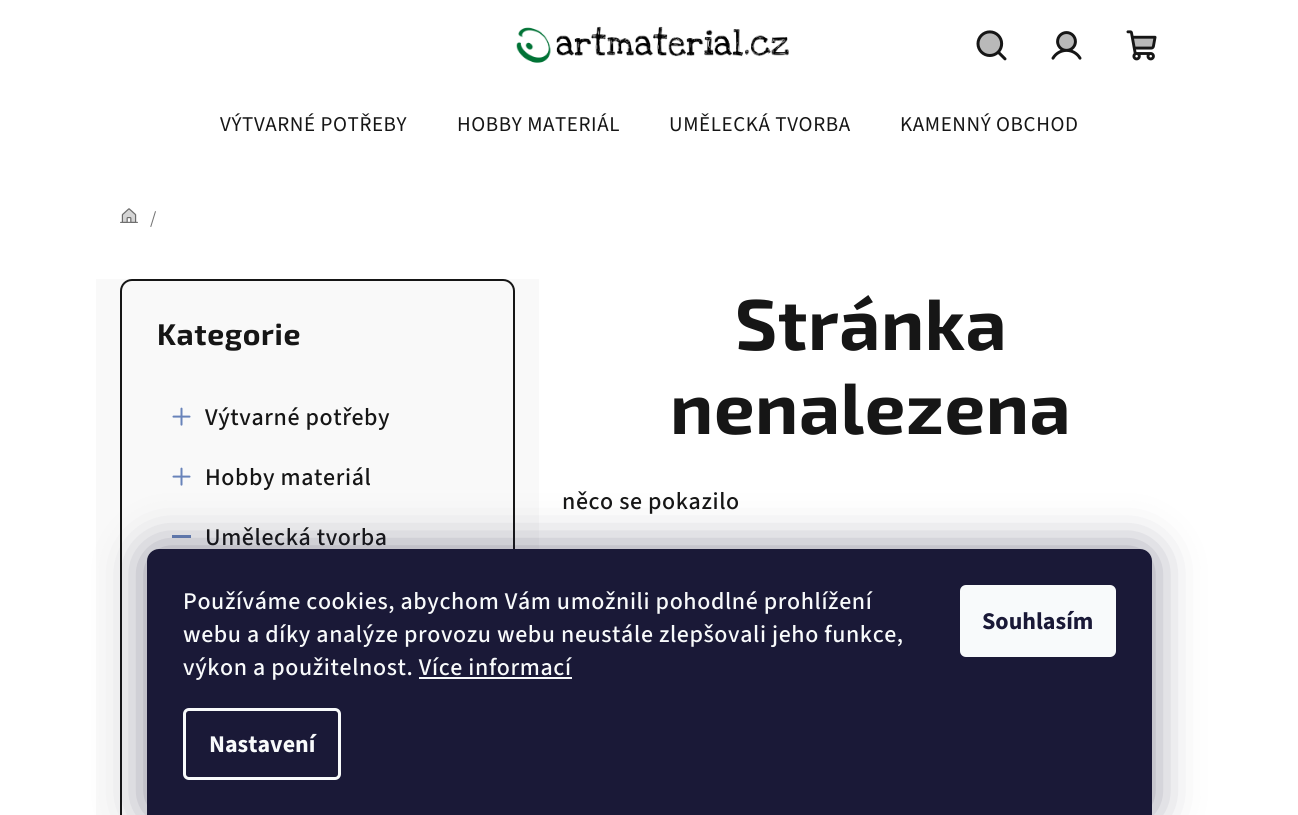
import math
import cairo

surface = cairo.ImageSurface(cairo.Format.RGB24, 1298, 815)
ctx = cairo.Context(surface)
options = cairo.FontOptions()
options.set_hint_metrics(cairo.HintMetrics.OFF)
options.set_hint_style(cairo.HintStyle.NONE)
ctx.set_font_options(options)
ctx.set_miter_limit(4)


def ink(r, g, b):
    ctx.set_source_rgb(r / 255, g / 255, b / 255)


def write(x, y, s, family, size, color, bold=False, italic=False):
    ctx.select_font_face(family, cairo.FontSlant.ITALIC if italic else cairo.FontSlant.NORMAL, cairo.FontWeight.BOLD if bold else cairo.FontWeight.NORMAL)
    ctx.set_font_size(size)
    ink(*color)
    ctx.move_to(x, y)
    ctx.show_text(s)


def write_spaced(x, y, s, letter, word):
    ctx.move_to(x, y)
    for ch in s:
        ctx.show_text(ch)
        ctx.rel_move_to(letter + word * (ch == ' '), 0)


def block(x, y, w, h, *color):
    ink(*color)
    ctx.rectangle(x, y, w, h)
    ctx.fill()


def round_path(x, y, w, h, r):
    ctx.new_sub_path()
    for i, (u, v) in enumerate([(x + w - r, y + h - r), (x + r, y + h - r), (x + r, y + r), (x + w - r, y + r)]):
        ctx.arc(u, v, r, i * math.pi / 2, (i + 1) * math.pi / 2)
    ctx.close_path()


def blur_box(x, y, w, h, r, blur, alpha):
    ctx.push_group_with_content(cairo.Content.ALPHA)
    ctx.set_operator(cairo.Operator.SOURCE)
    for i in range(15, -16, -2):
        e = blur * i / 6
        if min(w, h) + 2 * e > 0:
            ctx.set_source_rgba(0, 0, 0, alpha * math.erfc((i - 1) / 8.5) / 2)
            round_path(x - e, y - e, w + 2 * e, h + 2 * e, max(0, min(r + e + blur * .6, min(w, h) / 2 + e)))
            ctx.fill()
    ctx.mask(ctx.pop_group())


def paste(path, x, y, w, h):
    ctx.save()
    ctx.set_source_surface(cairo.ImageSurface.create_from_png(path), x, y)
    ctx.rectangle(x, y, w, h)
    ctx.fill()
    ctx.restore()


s1 = dict(family="Source Sans 3", size=24, color=(248, 250, 251), bold=True)
s2 = dict(family="Source Sans 3", size=24, color=(26, 25, 55), bold=True)

ink(255, 255, 255)
ctx.paint()
paste("pic1.png", 516, 26, 273, 37)
paste("pic2.png", 976, 30, 31, 31)
ctx.set_source_rgba(0.086, 0.086, 0.086, 0.3)
ctx.new_path()
ctx.move_to(990, 55.5)
ctx.curve_to(1005.5, 55.5, 1005.5, 32, 990, 32)
ctx.curve_to(974.5, 32, 974.5, 55.5, 990, 55.5)
ctx.close_path()
ctx.fill()
paste("pic3.png", 1051, 31, 31, 29)
ctx.new_path()
ctx.move_to(1066.5, 50.5)
ctx.curve_to(1078, 50.5, 1078, 32.5, 1066.5, 32.5)
ctx.curve_to(1055, 32.5, 1055, 50.5, 1066.5, 50.5)
ctx.close_path()
ctx.fill()
paste("pic4.png", 1126, 30, 31, 31)
ctx.new_path()
ctx.move_to(1134.5, 48)
ctx.line_to(1148.5, 48)
ctx.curve_to(1152.5, 48, 1153, 48.5, 1153.5, 45)
ctx.line_to(1155, 37)
ctx.line_to(1132.5, 37)
ctx.close_path()
ctx.fill()
ctx.select_font_face("Source Sans 3")
ctx.set_font_size(21)
ink(22, 22, 22)
write_spaced(220, 131, "VÝTVARNÉ POTŘEBY", 0.6, 0)
write_spaced(457, 131, "HOBBY MATERIÁL", 0.6, 0)
write_spaced(669, 131, "UMĚLECKÁ TVORBA", 0.6, 0)
write_spaced(900, 131, "KAMENNÝ OBCHOD", 0.6, 0)
paste("pic5.png", 120, 208, 18, 15)
paste("pic6.png", 122, 209, 14, 14)
ctx.set_font_size(18)
ink(116, 116, 116)
write_spaced(150, 224, "/", 1, 0)
block(96, 279, 443, 536, 249, 249, 249)
round_path(121, 280, 393, 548, 11)
ink(22, 22, 22)
ctx.stroke()
ctx.select_font_face("Exo 2", cairo.FontSlant.NORMAL, cairo.FontWeight.BOLD)
ctx.set_font_size(30)
write_spaced(157, 345, "Kategorie", 0.6, 0)
paste("pic7.png", 172, 407, 19, 19)
ctx.select_font_face("Source Sans 3 Medium")
ctx.set_font_size(24)
write_spaced(205, 425, "Výtvarné potřeby", 0.6, 0)
paste("pic7.png", 172, 467, 19, 19)
write_spaced(205, 485, "Hobby materiál", 0.6, 0)
block(172, 535, 19, 3, 104, 131, 186)
ink(22, 22, 22)
write_spaced(205, 545, "Umělecká tvorba", 0.6, 0)
ctx.select_font_face("Exo 2", cairo.FontSlant.NORMAL, cairo.FontWeight.BOLD)
ctx.set_font_size(72)
write_spaced(735, 350, "Stránka", 0.6, 0)
write_spaced(670, 434, "nenalezena", 0.6, 0)
ctx.select_font_face("Source Sans 3 Medium")
ctx.set_font_size(24)
write_spaced(562, 509, "něco se pokazilo", 0.6, 0)
ink(27, 25, 57)
blur_box(147, 549, 1005, 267, 12, 22.5, 0.5)
ink(26, 25, 55)
ctx.new_path()
ctx.move_to(159, 549)
ctx.line_to(1140, 549)
ctx.curve_to(1146.5, 549, 1152, 554.5, 1152, 561)
ctx.line_to(1152, 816)
ctx.line_to(147, 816)
ctx.line_to(147, 561)
ctx.curve_to(147, 554.5, 152.5, 549, 159, 549)
ctx.close_path()
ctx.fill()
ink(248, 250, 251)
write_spaced(183, 609, "Používáme cookies, abychom Vám umožnili pohodlné prohlížení", 0.6, 0)
write_spaced(183, 642, "webu a díky analýze provozu webu neustále zlepšovali jeho funkce,", 0.6, 0)
write_spaced(183, 675, "výkon a použitelnost. Více informací", 0.6, 0)
block(419, 677, 153, 2, 248, 250, 251)
round_path(184.5, 709.5, 155, 69, 4.5)
ctx.set_line_width(3)
ctx.stroke()
write(209, 752, "Nastavení", **s1)
round_path(960, 585, 156, 72, 6)
ctx.fill()
write(982, 629, "Souhlasím", **s2)
surface.write_to_png("screenshot.png")
